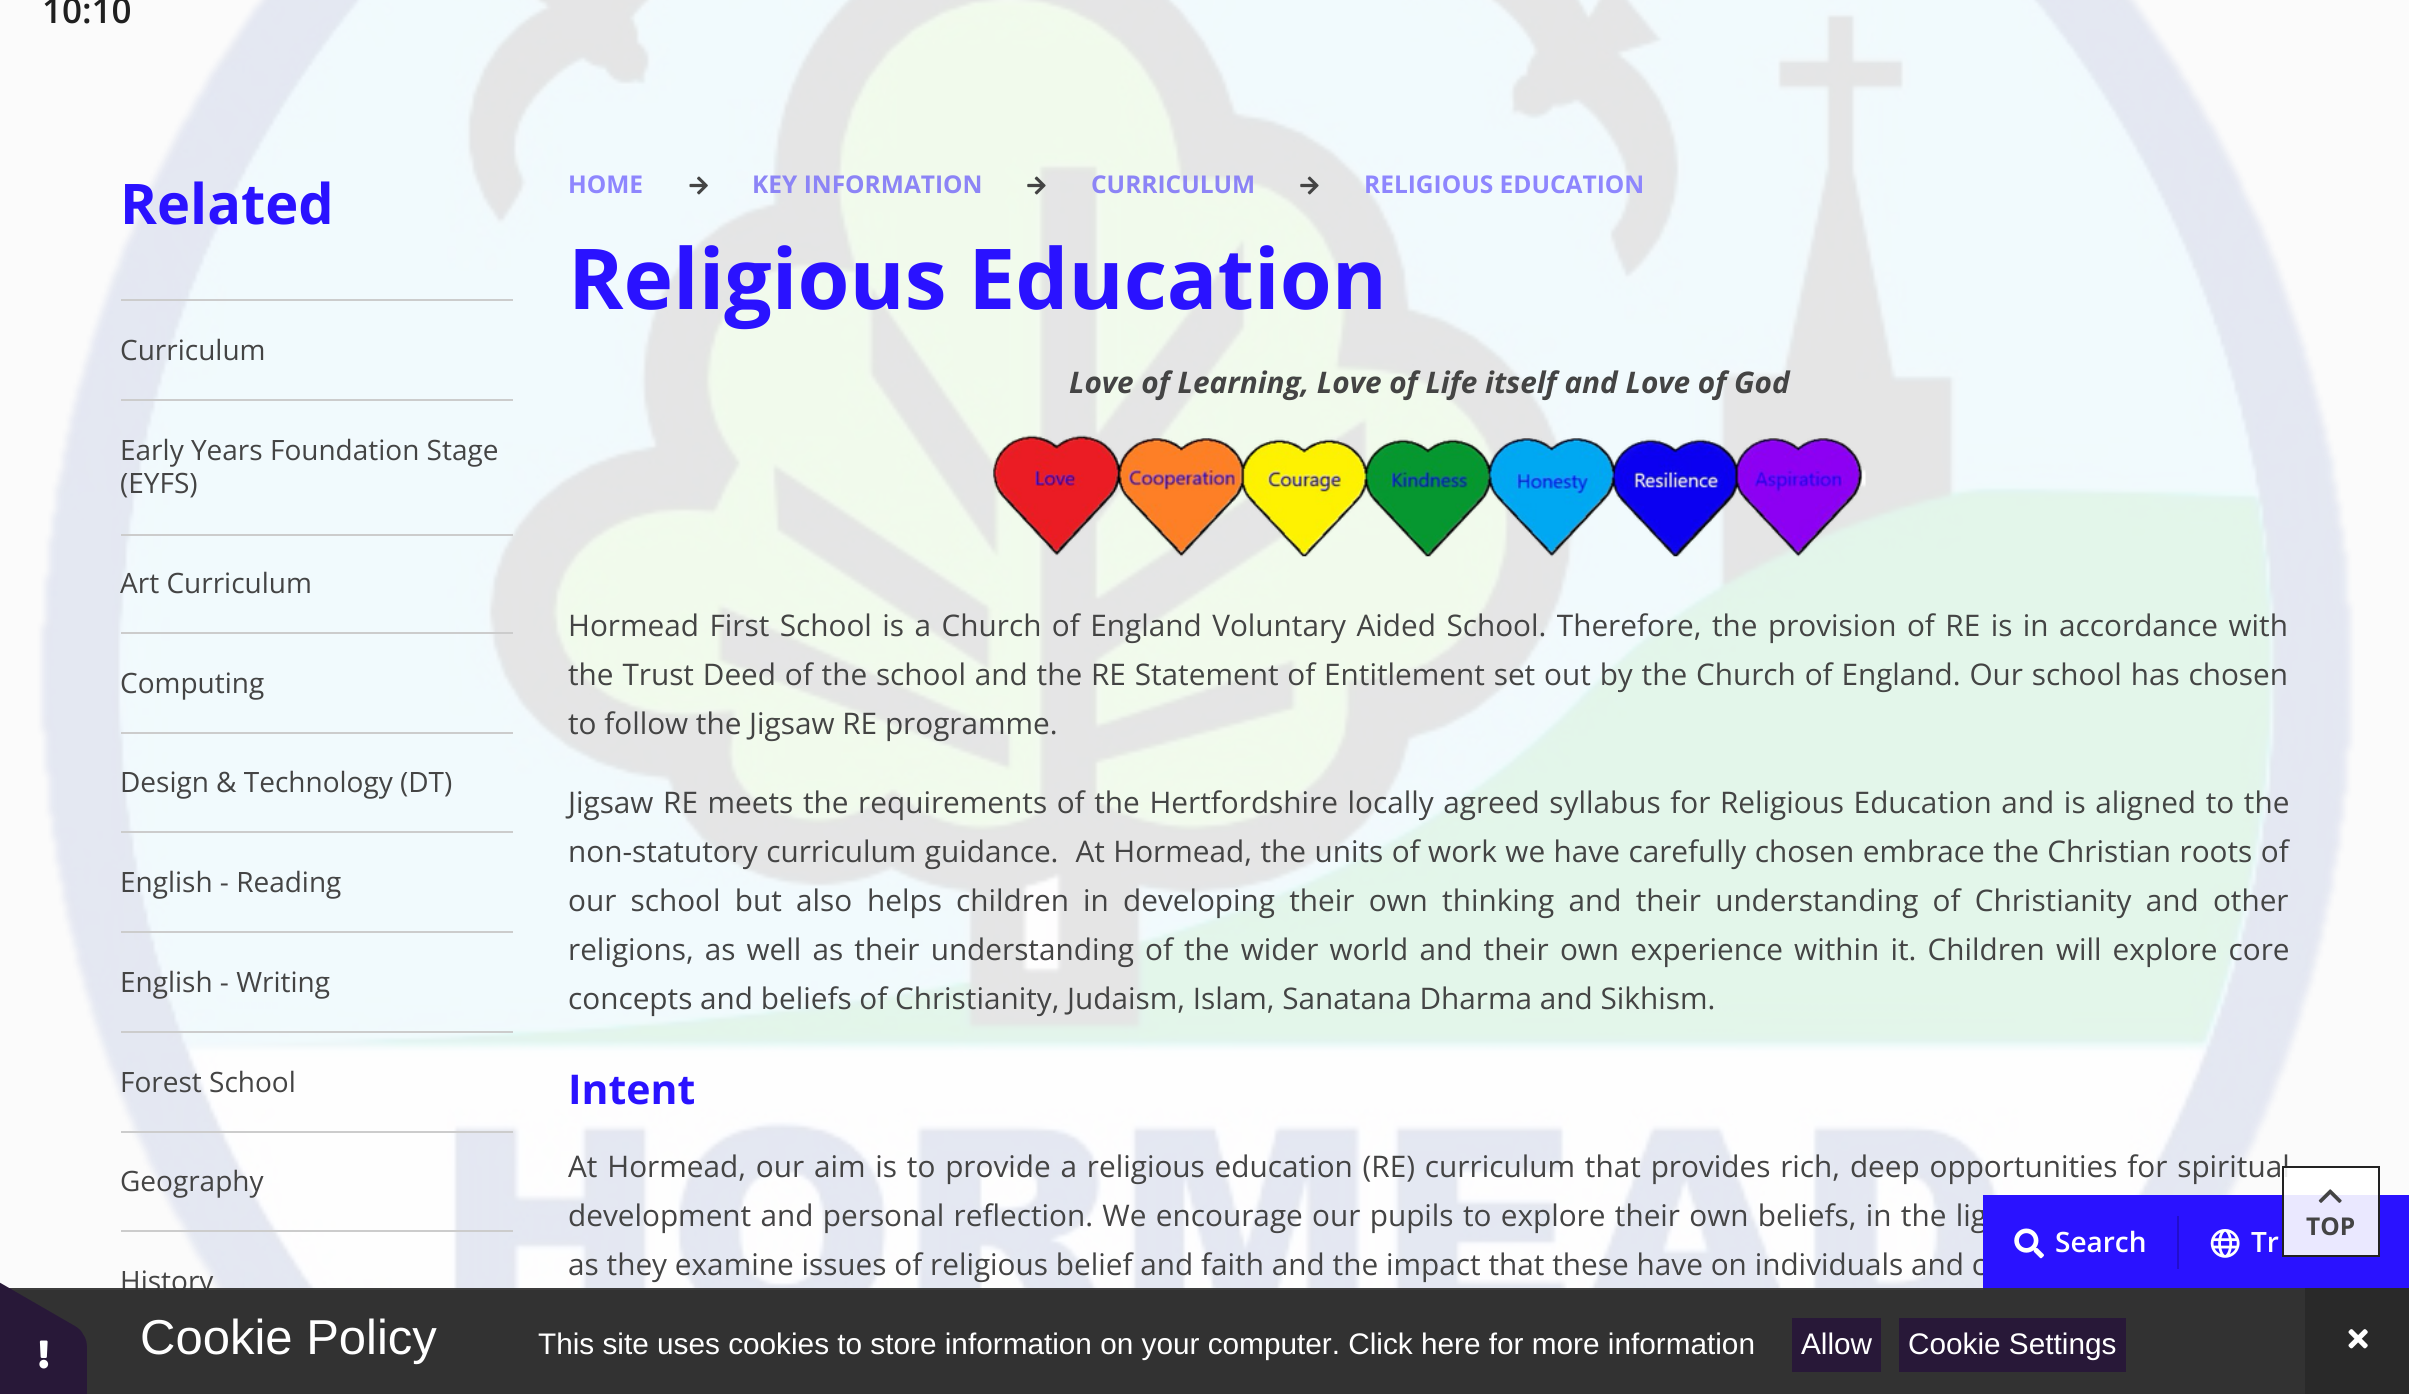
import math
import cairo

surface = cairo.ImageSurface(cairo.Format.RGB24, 2409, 1394)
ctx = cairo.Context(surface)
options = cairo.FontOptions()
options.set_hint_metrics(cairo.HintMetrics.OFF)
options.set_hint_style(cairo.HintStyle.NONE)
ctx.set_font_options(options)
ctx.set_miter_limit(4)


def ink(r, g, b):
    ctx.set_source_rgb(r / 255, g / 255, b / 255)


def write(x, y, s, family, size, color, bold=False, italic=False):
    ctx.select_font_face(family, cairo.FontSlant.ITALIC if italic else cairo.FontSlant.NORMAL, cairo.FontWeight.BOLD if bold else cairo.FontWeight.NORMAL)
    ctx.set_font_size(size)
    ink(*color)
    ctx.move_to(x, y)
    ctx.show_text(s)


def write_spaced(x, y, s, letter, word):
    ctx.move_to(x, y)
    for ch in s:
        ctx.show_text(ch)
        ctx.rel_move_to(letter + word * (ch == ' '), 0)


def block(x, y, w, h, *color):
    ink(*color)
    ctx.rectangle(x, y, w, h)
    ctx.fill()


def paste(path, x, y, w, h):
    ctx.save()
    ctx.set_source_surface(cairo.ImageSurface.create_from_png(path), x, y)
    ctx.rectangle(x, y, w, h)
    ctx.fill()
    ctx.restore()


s1 = dict(family="Open Sans SemiBold", size=35, color=(32, 32, 32))
s2 = dict(family="Open Sans", size=56, color=(42, 18, 255), bold=True)
s3 = dict(family="Open Sans", size=28, color=(68, 68, 68))
s4 = dict(family="Open Sans", size=24.5, color=(142, 134, 254), bold=True)
s5 = dict(family="Open Sans", size=24.5, color=(140, 132, 246), bold=True)
s6 = dict(family="Open Sans", size=84, color=(42, 18, 255), bold=True)
s7 = dict(family="Open Sans", size=29.75, color=(68, 68, 68), bold=True, italic=True)
s8 = dict(family="Open Sans", size=29.75, color=(68, 68, 68))
s9 = dict(family="Open Sans", size=41, color=(42, 18, 255), bold=True)
s10 = dict(family="Open Sans", size=24.5, color=(68, 68, 68), bold=True)
s11 = dict(family="Open Sans SemiBold", size=28, color=(255, 255, 255))
s12 = dict(family="Liberation Sans", size=49, color=(255, 255, 255))
s13 = dict(family="Liberation Sans", size=29.75, color=(255, 255, 255))

ink(221, 221, 221)
ctx.paint()
block(0, 58, 2409, 1232, 251, 251, 251)
paste("pic1.png", 37, 0, 2318, 1290)
ctx.set_source_rgba(1, 1, 1, 0.89)
ctx.rectangle(0, 0, 2409, 58)
ctx.fill()
write(42, 23, "10:10", **s1)
write(120, 224, "Related", **s2)
block(121, 299, 392, 2, 204, 204, 204)
write(120, 360, "Curriculum", **s3)
block(121, 399, 392, 2, 204, 204, 204)
write(120, 460, "Early Years Foundation Stage", **s3)
write(120, 493, "(EYFS)", **s3)
block(121, 534, 392, 2, 204, 204, 204)
write(120, 593, "Art Curriculum", **s3)
block(121, 632, 392, 2, 204, 204, 204)
write(120, 693, "Computing", **s3)
block(121, 732, 392, 2, 204, 204, 204)
write(120, 792, "Design & Technology (DT)", **s3)
block(121, 831, 392, 2, 204, 204, 204)
write(120, 892, "English - Reading", **s3)
block(121, 931, 392, 2, 204, 204, 204)
write(120, 992, "English - Writing", **s3)
block(121, 1031, 392, 2, 204, 204, 204)
write(120, 1092, "Forest School", **s3)
block(121, 1131, 392, 2, 204, 204, 204)
write(120, 1191, "Geography", **s3)
block(121, 1230, 392, 2, 204, 204, 204)
write(120, 1291, "History", **s3)
write(568, 193, "HOME", **s4)
paste("pic2.png", 689, 176, 19, 19)
write(752, 193, "KEY INFORMATION", **s5)
paste("pic3.png", 1027, 176, 19, 19)
write(1091, 193, "CURRICULUM", **s5)
paste("pic4.png", 1300, 176, 19, 19)
write(1364, 193, "RELIGIOUS EDUCATION", **s4)
write(568, 309, "Religious Education", **s6)
write(1069, 393, "Love of Learning, Love of Life itself and Love of God", **s7)
paste("pic5.png", 993, 435, 873, 122)
ctx.select_font_face("Open Sans")
write_spaced(568, 636, "Hormead First School is a Church of England Voluntary Aided School. Therefore, the provision of RE is in accordance with", 0, 2.75)
write_spaced(568, 685, "the Trust Deed of the school and the RE Statement of Entitlement set out by the Church of England. Our school has chosen", 0, 1.1)
write(568, 734, "to follow the Jigsaw RE programme.", **s8)
write_spaced(568, 813, "Jigsaw RE meets the requirements of the Hertfordshire locally agreed syllabus for Religious Education and is aligned to the", 0, 1.9)
write_spaced(568, 862, "non-statutory curriculum guidance.  At Hormead, the units of work we have carefully chosen embrace the Christian roots of", 0, 0.75)
write_spaced(568, 911, "our school but also", 0, 6.5)
write_spaced(867, 911, "helps children", 0, 6.5)
write_spaced(1083, 911, "in developing their own thinking and their understanding of Christianity and other", 0, 6.5)
write_spaced(568, 960, "religions, as well as their understanding of the wider world and their own experience within it. Children will explore core", 0, 3.4)
write(568, 1009, "concepts and beliefs of Christianity, Judaism, Islam, Sanatana Dharma and Sikhism.", **s8)
write(568, 1104, "Intent", **s9)
ctx.select_font_face("Open Sans")
ctx.set_font_size(29.75)
ink(68, 68, 68)
write_spaced(568, 1177, "At Hormead, our aim is to provide a religious education (RE) curriculum that provides rich, deep opportunities for spiritual", 0, 2.1)
write_spaced(568, 1226, "development and personal reflection. We encourage our pupils to explore their own beliefs, in the lig", 0, 1.6)
write_spaced(568, 1275, "as they examine issues of religious belief and faith and the impact that these have on individuals and c", 0, 0.1)
block(1983, 1195, 426, 95, 42, 18, 255)
ctx.set_source_rgba(1, 1, 1, 0.9)
ctx.rectangle(2283, 1167, 96, 89)
ctx.fill_preserve()
ink(34, 34, 34)
ctx.stroke()
paste("pic6.png", 2318, 1189, 24, 14)
write(2306, 1235, "TOP", **s10)
paste("pic7.png", 2014, 1228, 30, 31)
write(2055, 1252, "Search", **s11)
block(2177, 1216, 2, 53, 34, 14, 204)
paste("pic8.png", 2210, 1229, 30, 29)
write(2251, 1252, "Tr", **s11)
block(12, 1290, 2293, 104, 33, 33, 33)
ctx.set_source_rgba(0.2, 0.2, 0.2, 0.95)
ctx.rectangle(9, 1288, 2296, 106)
ctx.fill()
ink(40, 24, 56)
ctx.new_path()
ctx.move_to(87, 1347)
ctx.line_to(87, 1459)
ctx.curve_to(87, 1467, 84, 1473, 80, 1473)
ctx.line_to(-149, 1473)
ctx.curve_to(-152, 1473, -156, 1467, -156, 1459)
ctx.line_to(-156, 1347)
ctx.curve_to(-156, 1340, -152, 1333, -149, 1333)
ctx.line_to(80, 1333)
ctx.curve_to(84, 1333, 87, 1340, 87, 1347)
ctx.close_path()
ctx.fill()
ctx.new_path()
ctx.move_to(-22, 1270)
ctx.line_to(75, 1326)
ctx.curve_to(82, 1330, 85, 1336, 83, 1339)
ctx.line_to(-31, 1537)
ctx.curve_to(-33, 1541, -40, 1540, -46, 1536)
ctx.line_to(-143, 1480)
ctx.curve_to(-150, 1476, -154, 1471, -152, 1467)
ctx.line_to(-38, 1269)
ctx.curve_to(-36, 1266, -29, 1266, -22, 1270)
ctx.close_path()
ctx.fill()
paste("pic9.png", 39, 1340, 10, 29)
write(140, 1354, "Cookie Policy", **s12)
write(538, 1354, "This site uses cookies to store information on your computer. Click here for more information", **s13)
block(1792, 1318, 89, 54, 40, 24, 56)
write(1801, 1354, "Allow", **s13)
block(1899, 1318, 227, 54, 40, 24, 56)
write(1908, 1354, "Cookie Settings", **s13)
block(2305, 1288, 104, 106, 41, 41, 41)
paste("pic10.png", 2348, 1329, 20, 20)
surface.write_to_png("screenshot.png")
